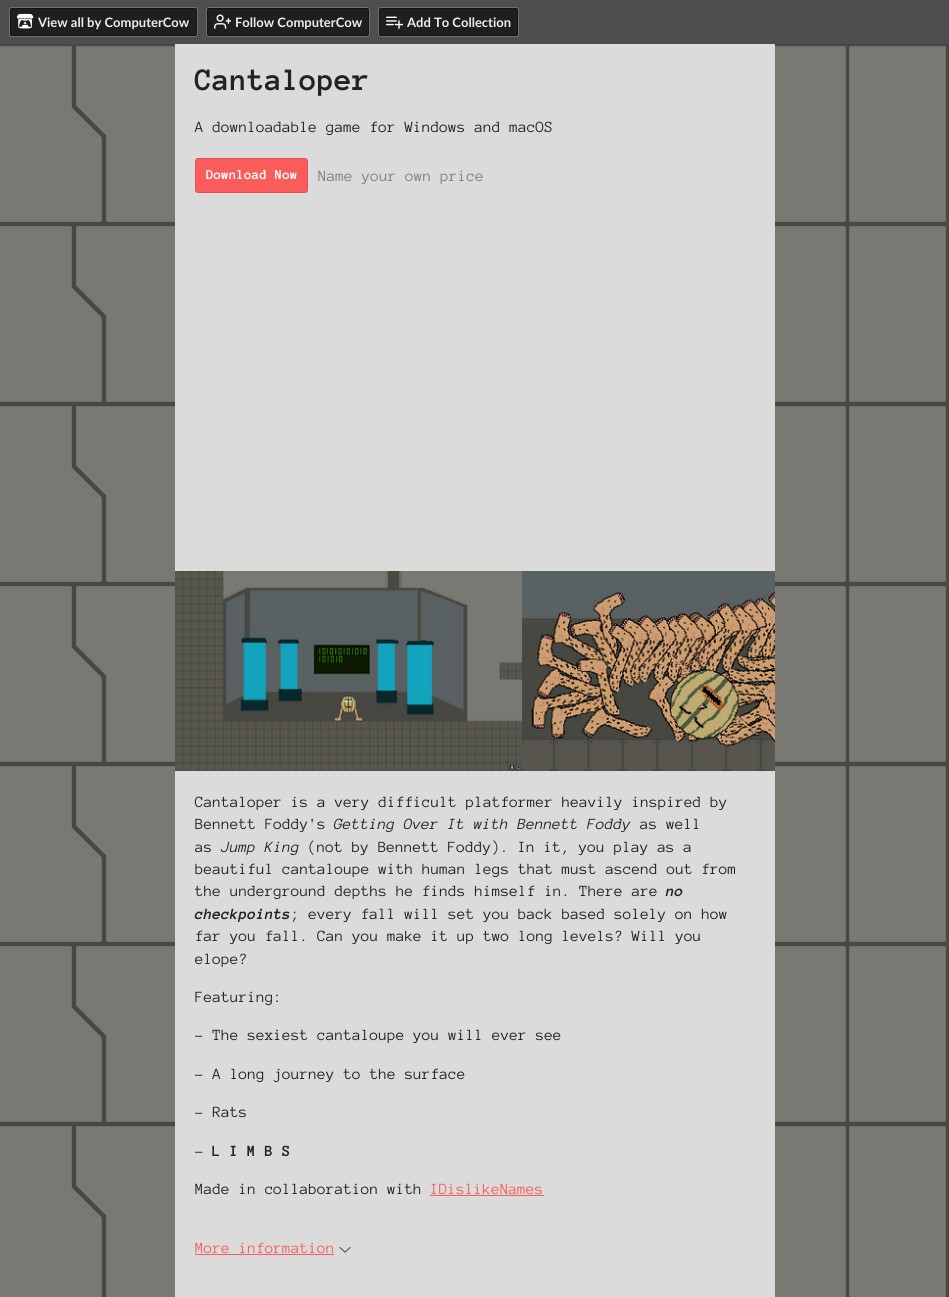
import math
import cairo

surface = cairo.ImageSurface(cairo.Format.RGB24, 949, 1297)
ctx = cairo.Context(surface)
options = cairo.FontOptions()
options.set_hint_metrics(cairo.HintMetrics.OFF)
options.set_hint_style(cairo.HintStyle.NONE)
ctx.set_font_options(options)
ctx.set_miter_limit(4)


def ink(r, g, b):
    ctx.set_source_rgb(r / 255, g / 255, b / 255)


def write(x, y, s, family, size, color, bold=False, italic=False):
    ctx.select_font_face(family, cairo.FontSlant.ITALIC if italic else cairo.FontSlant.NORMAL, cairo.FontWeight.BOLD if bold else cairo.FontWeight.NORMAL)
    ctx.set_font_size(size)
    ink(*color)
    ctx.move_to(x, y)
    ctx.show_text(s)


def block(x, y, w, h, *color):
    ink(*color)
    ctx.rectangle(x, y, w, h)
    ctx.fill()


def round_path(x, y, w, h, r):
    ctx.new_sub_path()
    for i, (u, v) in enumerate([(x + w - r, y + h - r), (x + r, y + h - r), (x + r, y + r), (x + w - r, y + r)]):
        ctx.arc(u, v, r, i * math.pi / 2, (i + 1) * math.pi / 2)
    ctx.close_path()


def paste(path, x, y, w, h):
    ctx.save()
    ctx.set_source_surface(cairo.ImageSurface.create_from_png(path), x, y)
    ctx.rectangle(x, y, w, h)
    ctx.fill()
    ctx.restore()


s1 = dict(family="Lato", size=13, color=(238, 238, 238), bold=True)
s2 = dict(family="Anonymous Pro", size=32, color=(34, 34, 34), bold=True)
s3 = dict(family="Anonymous Pro", size=16, color=(34, 34, 34))
s4 = dict(family="Anonymous Pro", size=14, color=(255, 255, 255), bold=True)
s5 = dict(family="Anonymous Pro", size=16, color=(127, 127, 127))
s6 = dict(family="Anonymous Pro", size=16, color=(34, 34, 34), italic=True)
s7 = dict(family="Anonymous Pro", size=16, color=(34, 34, 34), bold=True, italic=True)
s8 = dict(family="Anonymous Pro", size=16, color=(34, 34, 34), bold=True)
s9 = dict(family="Anonymous Pro", size=16, color=(250, 92, 92))

ink(255, 255, 255)
ctx.paint()
block(0, 0, 949, 44, 78, 78, 78)
round_path(9.5, 7.5, 188, 29, 2.5)
ink(113, 113, 113)
ctx.set_line_width(1)
ctx.stroke()
ctx.set_source_rgba(0, 0, 0, 0.6)
round_path(10, 8, 187, 28, 2)
ctx.fill()
round_path(10.5, 8.5, 186, 27, 1.5)
ctx.set_source_rgba(0.039, 0.039, 0.039, 0.5)
ctx.stroke()
paste("pic1.png", 17, 13, 17, 16)
write(38, 27, "View all by ComputerCow", **s1)
round_path(206.5, 7.5, 163, 29, 2.5)
ink(113, 113, 113)
ctx.stroke()
ctx.set_source_rgba(0, 0, 0, 0.6)
round_path(207, 8, 162, 28, 2)
ctx.fill()
round_path(207.5, 8.5, 161, 27, 1.5)
ctx.set_source_rgba(0.039, 0.039, 0.039, 0.5)
ctx.stroke()
paste("pic2.png", 214, 14, 17, 15)
write(235, 27, "Follow ComputerCow", **s1)
round_path(378.5, 7.5, 140, 29, 2.5)
ink(113, 113, 113)
ctx.stroke()
ctx.set_source_rgba(0, 0, 0, 0.6)
round_path(379, 8, 139, 28, 2)
ctx.fill()
round_path(379.5, 8.5, 138, 27, 1.5)
ctx.set_source_rgba(0.039, 0.039, 0.039, 0.5)
ctx.stroke()
paste("pic3.png", 386, 16, 17, 13)
write(407, 27, "Add To Collection", **s1)
paste("pic4.png", 0, 44, 949, 1253)
block(175, 44, 600, 1253, 220, 219, 219)
write(195, 90, "Cantaloper", **s2)
write(195, 132, "A downloadable game for Windows and macOS", **s3)
ink(250, 92, 92)
round_path(195, 158, 113, 35, 3)
ctx.fill()
round_path(195.5, 158.5, 112, 34, 2.5)
ctx.set_source_rgba(0, 0, 0, 0.1)
ctx.stroke()
write(206, 179, "Download Now", **s4)
write(318, 181, "Name your own price", **s5)
paste("pic5.png", 175, 571, 347, 200)
paste("pic6.png", 522, 571, 253, 200)
write(195, 807, "Cantaloper is a very difficult platformer heavily inspired by", **s3)
write(195, 829, "Bennett Foddy's", **s3)
write(334, 829, "Getting Over It with Bennett Foddy", **s6)
write(640, 829, "as well", **s3)
write(195, 852, "as", **s3)
write(221, 852, "Jump King", **s6)
write(308, 852, "(not by Bennett Foddy). In it, you play as a", **s3)
write(195, 874, "beautiful cantaloupe with human legs that must ascend out from", **s3)
write(195, 896, "the underground depths he finds himself in. There are", **s3)
write(666, 896, "no", **s7)
write(195, 919, "checkpoints", **s7)
write(291, 919, "; every fall will set you back based solely on how", **s3)
write(195, 941, "far you fall. Can you make it up two long levels? Will you", **s3)
write(195, 964, "elope?", **s3)
write(195, 1002, "Featuring:", **s3)
write(195, 1040, "- The sexiest cantaloupe you will ever see", **s3)
write(195, 1079, "- A long journey to the surface", **s3)
write(195, 1117, "- Rats", **s3)
write(195, 1156, "-", **s3)
write(212, 1156, "L I M B S", **s8)
write(195, 1194, "Made in collaboration with", **s3)
write(430, 1194, "IDislikeNames", **s9)
block(430, 1195, 114, 1, 250, 92, 92)
write(195, 1253, "More information", **s9)
block(195, 1254, 139, 1, 250, 92, 92)
paste("pic7.png", 339, 1247, 12, 6)
surface.write_to_png("screenshot.png")
